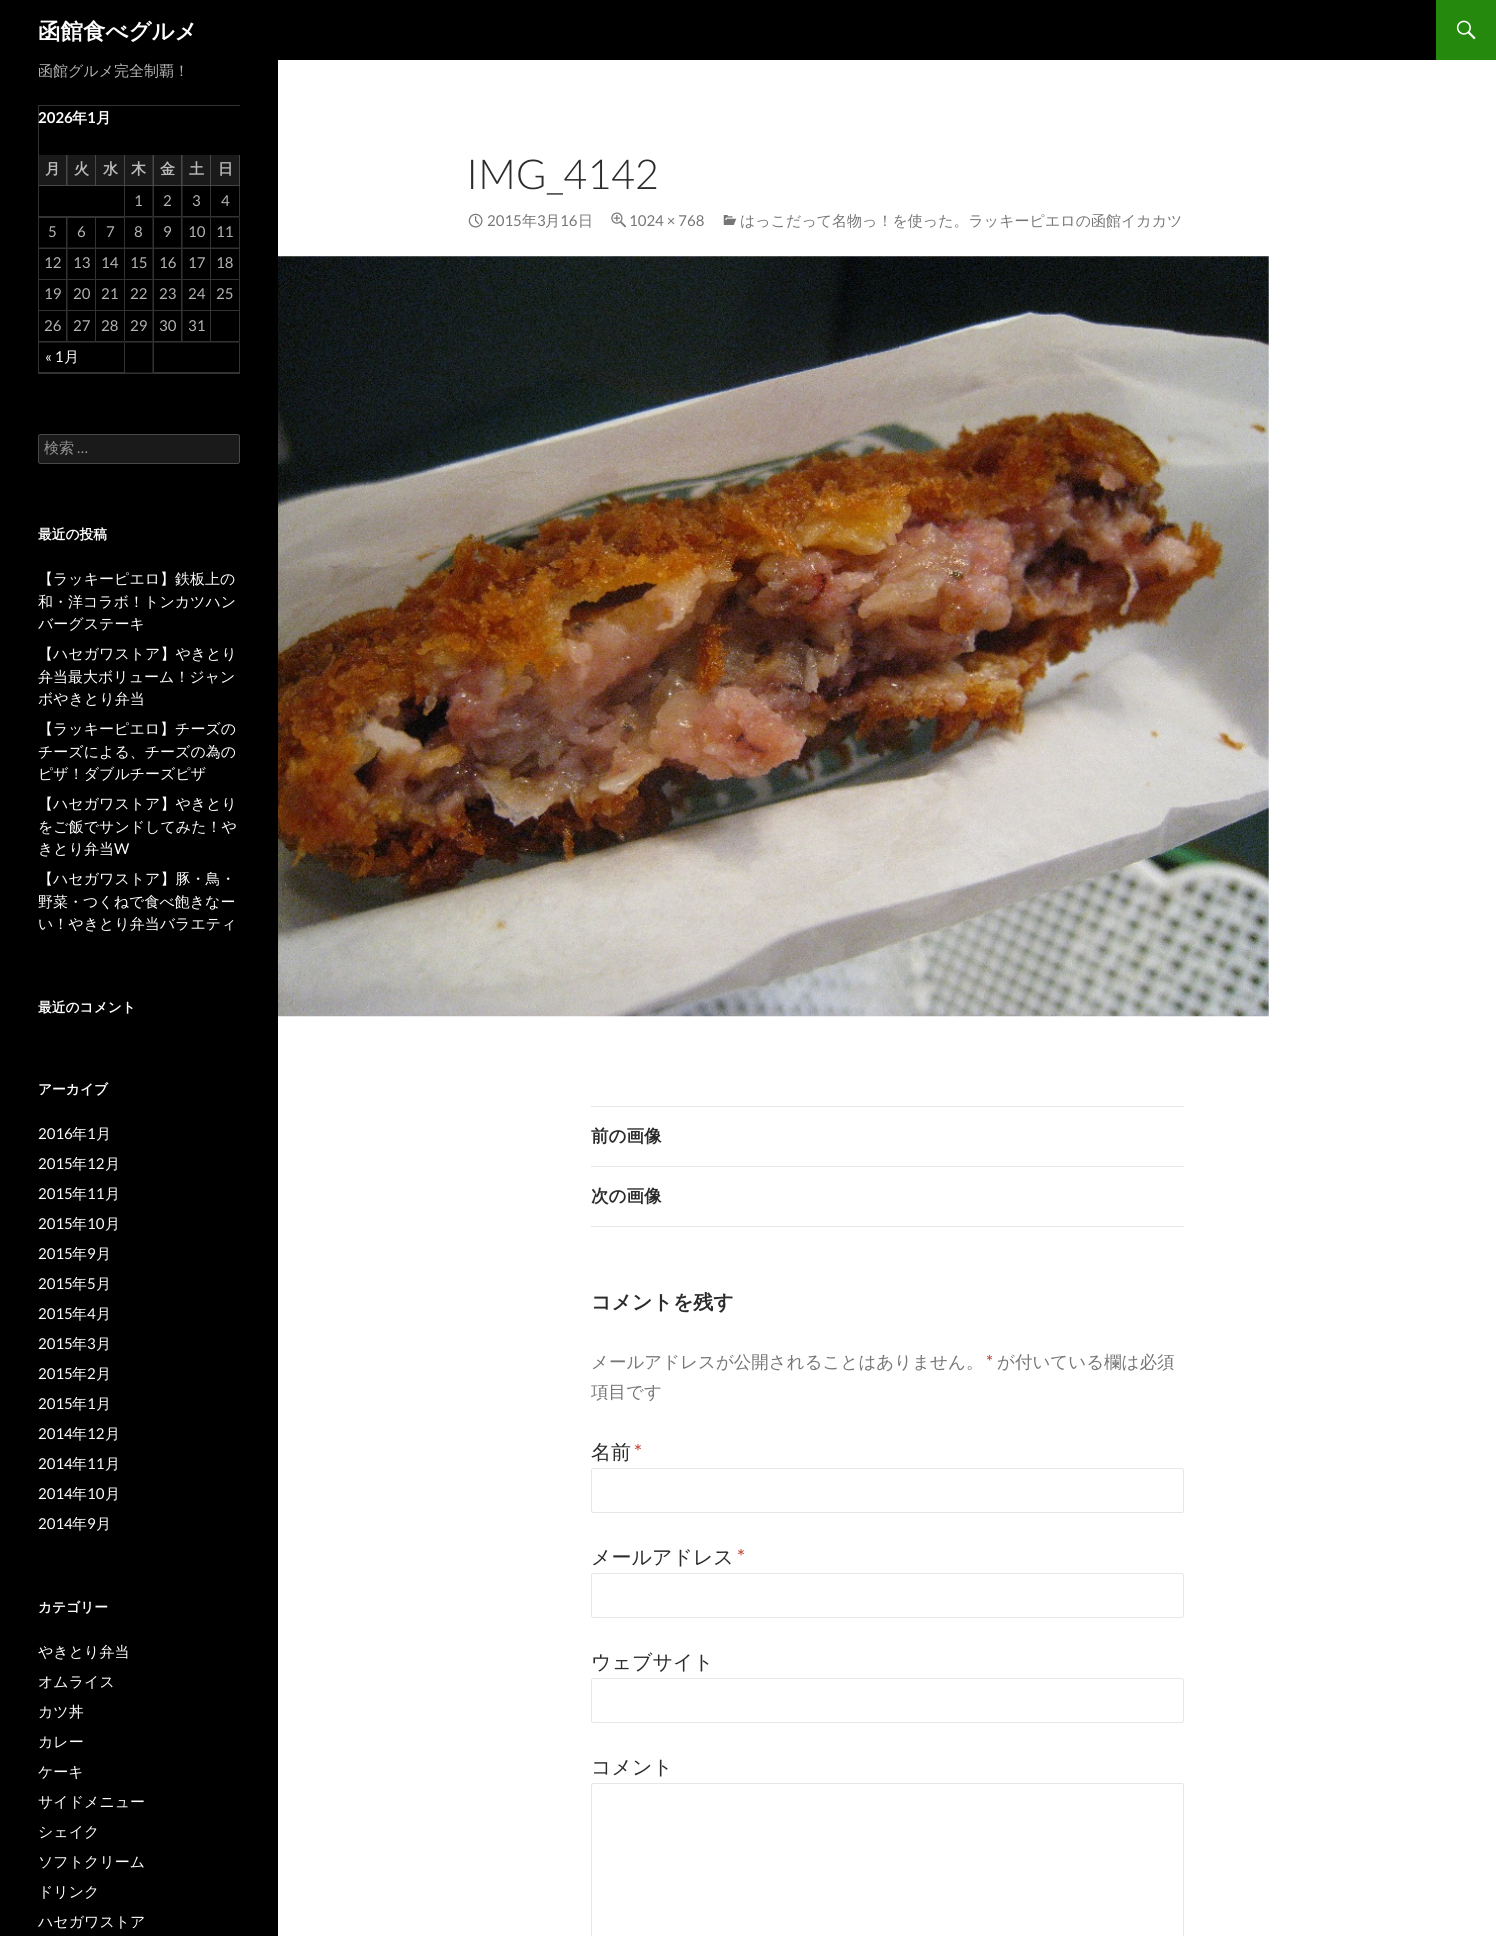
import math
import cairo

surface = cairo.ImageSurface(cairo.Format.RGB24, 1496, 1936)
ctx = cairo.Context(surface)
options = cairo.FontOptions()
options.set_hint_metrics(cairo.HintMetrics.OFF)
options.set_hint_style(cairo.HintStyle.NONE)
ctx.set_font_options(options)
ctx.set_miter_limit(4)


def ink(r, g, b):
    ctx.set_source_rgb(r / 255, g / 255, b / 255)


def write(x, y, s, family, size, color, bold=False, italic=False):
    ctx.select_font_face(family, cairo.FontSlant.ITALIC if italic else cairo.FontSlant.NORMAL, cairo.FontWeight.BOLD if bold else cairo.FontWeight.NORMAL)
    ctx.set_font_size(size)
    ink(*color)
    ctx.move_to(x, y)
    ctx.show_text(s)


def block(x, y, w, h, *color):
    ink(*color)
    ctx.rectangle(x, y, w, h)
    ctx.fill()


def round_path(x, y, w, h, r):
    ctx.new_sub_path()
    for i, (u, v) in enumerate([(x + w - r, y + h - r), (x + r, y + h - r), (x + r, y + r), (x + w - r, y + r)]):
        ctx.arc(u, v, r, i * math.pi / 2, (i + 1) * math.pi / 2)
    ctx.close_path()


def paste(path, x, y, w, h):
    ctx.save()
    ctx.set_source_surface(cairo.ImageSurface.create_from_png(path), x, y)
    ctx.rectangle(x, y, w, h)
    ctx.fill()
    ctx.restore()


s1 = dict(family="WenQuanYi Zen Hei", size=22.5, color=(255, 255, 255), bold=True)
s2 = dict(family="WenQuanYi Zen Hei Medium", size=15, color=(179, 179, 179))
s3 = dict(family="Lato", size=15, color=(255, 255, 255), bold=True)
s4 = dict(family="WenQuanYi Zen Hei", size=15, color=(255, 255, 255), bold=True)
s5 = dict(family="WenQuanYi Zen Hei", size=15, color=(186, 186, 186), bold=True)
s6 = dict(family="Lato", size=15, color=(179, 179, 179))
s7 = dict(family="Lato", size=15, color=(255, 255, 255))
s8 = dict(family="WenQuanYi Zen Hei Medium", size=15, color=(255, 255, 255))
s9 = dict(family="WenQuanYi Zen Hei Medium", size=15, color=(147, 147, 147))
s10 = dict(family="Lato", size=15, color=(147, 147, 147))
s11 = dict(family="WenQuanYi Zen Hei", size=13.75, color=(255, 255, 255), bold=True)
s12 = dict(family="Lato Light", size=41.25, color=(43, 43, 43))
s13 = dict(family="Lato", size=15, color=(118, 118, 118))
s14 = dict(family="WenQuanYi Zen Hei Medium", size=15, color=(118, 118, 118))
s15 = dict(family="WenQuanYi Zen Hei", size=17.5, color=(43, 43, 43), bold=True)
s16 = dict(family="WenQuanYi Zen Hei", size=20, color=(43, 43, 43), bold=True)
s17 = dict(family="WenQuanYi Zen Hei Medium", size=17.5, color=(118, 118, 118))
s18 = dict(family="Lato", size=17.5, color=(192, 57, 43))
s19 = dict(family="WenQuanYi Zen Hei Medium", size=20, color=(43, 43, 43))
s20 = dict(family="Lato", size=20, color=(192, 57, 43))

ink(255, 255, 255)
ctx.paint()
block(0, 0, 1436, 60, 0, 0, 0)
write(38, 39, "函館食べグルメ", **s1)
block(1436, 0, 60, 60, 36, 137, 13)
paste("pic1.png", 1456, 20, 20, 20)
block(0, 60, 278, 1876, 0, 0, 0)
write(38, 76, "函館グルメ完全制覇！", **s2)
ink(51, 51, 51)
ctx.new_path()
ctx.move_to(38, 105)
ctx.line_to(240, 105)
ctx.line_to(240, 106)
ctx.line_to(39, 106)
ctx.close_path()
ctx.fill()
ctx.set_source_rgba(1, 1, 1, 0.2)
ctx.new_path()
ctx.move_to(38, 374)
ctx.line_to(38, 105)
ctx.line_to(39, 106)
ctx.line_to(39, 374)
ctx.close_path()
ctx.fill()
write(38, 123, "2026", **s3)
write(72, 123, "年", **s4)
write(87, 123, "1", **s3)
write(96, 123, "月", **s4)
block(39, 155, 201, 31, 26, 26, 26)
ink(72, 72, 72)
ctx.new_path()
ctx.move_to(67.5, 155)
ctx.line_to(67.5, 186)
ctx.line_to(66, 185)
ctx.line_to(66, 155)
ctx.close_path()
ctx.fill()
ctx.set_source_rgba(1, 1, 1, 0.2)
ctx.new_path()
ctx.move_to(67.5, 186)
ctx.line_to(39, 186)
ctx.line_to(39, 185)
ctx.line_to(66, 185)
ctx.close_path()
ctx.fill()
write(45, 174, "月", **s5)
ink(72, 72, 72)
ctx.new_path()
ctx.move_to(96, 155)
ctx.line_to(96, 186)
ctx.line_to(95, 185)
ctx.line_to(95, 155)
ctx.close_path()
ctx.fill()
ctx.set_source_rgba(1, 1, 1, 0.2)
ctx.new_path()
ctx.move_to(96, 186)
ctx.line_to(67.5, 186)
ctx.line_to(67.5, 185)
ctx.line_to(95, 185)
ctx.close_path()
ctx.fill()
write(74, 174, "火", **s5)
ink(72, 72, 72)
ctx.new_path()
ctx.move_to(125, 155)
ctx.line_to(125, 186)
ctx.line_to(124, 185)
ctx.line_to(124, 155)
ctx.close_path()
ctx.fill()
ctx.set_source_rgba(1, 1, 1, 0.2)
ctx.new_path()
ctx.move_to(125, 186)
ctx.line_to(96, 186)
ctx.line_to(96, 185)
ctx.line_to(124, 185)
ctx.close_path()
ctx.fill()
write(103, 174, "水", **s5)
ink(72, 72, 72)
ctx.new_path()
ctx.move_to(154, 155)
ctx.line_to(154, 186)
ctx.line_to(152.5, 185)
ctx.line_to(152.5, 155)
ctx.close_path()
ctx.fill()
ctx.set_source_rgba(1, 1, 1, 0.2)
ctx.new_path()
ctx.move_to(154, 186)
ctx.line_to(125, 186)
ctx.line_to(125, 185)
ctx.line_to(152.5, 185)
ctx.close_path()
ctx.fill()
write(131, 174, "木", **s5)
ink(72, 72, 72)
ctx.new_path()
ctx.move_to(182.5, 155)
ctx.line_to(182.5, 186)
ctx.line_to(181, 185)
ctx.line_to(181, 155)
ctx.close_path()
ctx.fill()
ctx.set_source_rgba(1, 1, 1, 0.2)
ctx.new_path()
ctx.move_to(182.5, 186)
ctx.line_to(154, 186)
ctx.line_to(154, 185)
ctx.line_to(181, 185)
ctx.close_path()
ctx.fill()
write(160, 174, "金", **s5)
ink(72, 72, 72)
ctx.new_path()
ctx.move_to(211, 155)
ctx.line_to(211, 186)
ctx.line_to(210, 185)
ctx.line_to(210, 155)
ctx.close_path()
ctx.fill()
ctx.set_source_rgba(1, 1, 1, 0.2)
ctx.new_path()
ctx.move_to(211, 186)
ctx.line_to(182.5, 186)
ctx.line_to(182.5, 185)
ctx.line_to(210, 185)
ctx.close_path()
ctx.fill()
write(189, 174, "土", **s5)
ink(72, 72, 72)
ctx.new_path()
ctx.move_to(240, 155)
ctx.line_to(240, 186)
ctx.line_to(239, 185)
ctx.line_to(239, 155)
ctx.close_path()
ctx.fill()
ctx.set_source_rgba(1, 1, 1, 0.2)
ctx.new_path()
ctx.move_to(240, 186)
ctx.line_to(211, 186)
ctx.line_to(211, 185)
ctx.line_to(239, 185)
ctx.close_path()
ctx.fill()
write(218, 174, "日", **s5)
ink(51, 51, 51)
ctx.new_path()
ctx.move_to(125, 186)
ctx.line_to(125, 217.5)
ctx.line_to(124, 216)
ctx.line_to(124, 186)
ctx.close_path()
ctx.fill()
ctx.set_source_rgba(1, 1, 1, 0.2)
ctx.new_path()
ctx.move_to(125, 218)
ctx.line_to(39, 218)
ctx.line_to(39, 216)
ctx.line_to(124, 216)
ctx.close_path()
ctx.fill()
ink(51, 51, 51)
ctx.new_path()
ctx.move_to(154, 186)
ctx.line_to(154, 217.5)
ctx.line_to(152.5, 216)
ctx.line_to(152.5, 186)
ctx.close_path()
ctx.fill()
ctx.set_source_rgba(1, 1, 1, 0.2)
ctx.new_path()
ctx.move_to(154, 217.5)
ctx.line_to(125, 217.5)
ctx.line_to(125, 216)
ctx.line_to(152.5, 216)
ctx.close_path()
ctx.fill()
write(134, 206, "1", **s6)
ink(51, 51, 51)
ctx.new_path()
ctx.move_to(182.5, 186)
ctx.line_to(182.5, 217.5)
ctx.line_to(181, 216)
ctx.line_to(181, 186)
ctx.close_path()
ctx.fill()
ctx.set_source_rgba(1, 1, 1, 0.2)
ctx.new_path()
ctx.move_to(182.5, 217.5)
ctx.line_to(154, 217.5)
ctx.line_to(154, 216)
ctx.line_to(181, 216)
ctx.close_path()
ctx.fill()
write(163, 206, "2", **s6)
ink(51, 51, 51)
ctx.new_path()
ctx.move_to(211, 186)
ctx.line_to(211, 217.5)
ctx.line_to(210, 216)
ctx.line_to(210, 186)
ctx.close_path()
ctx.fill()
ctx.set_source_rgba(1, 1, 1, 0.2)
ctx.new_path()
ctx.move_to(211, 217.5)
ctx.line_to(182.5, 217.5)
ctx.line_to(182.5, 216)
ctx.line_to(210, 216)
ctx.close_path()
ctx.fill()
write(192, 206, "3", **s6)
ink(51, 51, 51)
ctx.new_path()
ctx.move_to(240, 186)
ctx.line_to(240, 217.5)
ctx.line_to(239, 216)
ctx.line_to(239, 186)
ctx.close_path()
ctx.fill()
ctx.new_path()
ctx.move_to(240, 217.5)
ctx.line_to(211, 217.5)
ctx.line_to(211, 216)
ctx.line_to(239, 216)
ctx.close_path()
ctx.fill()
write(221, 206, "4", **s6)
ink(51, 51, 51)
ctx.new_path()
ctx.move_to(67.5, 217.5)
ctx.line_to(67.5, 249)
ctx.line_to(66, 247.5)
ctx.line_to(66, 217.5)
ctx.close_path()
ctx.fill()
ctx.set_source_rgba(1, 1, 1, 0.2)
ctx.new_path()
ctx.move_to(67.5, 249)
ctx.line_to(39, 249)
ctx.line_to(39, 247.5)
ctx.line_to(66, 247.5)
ctx.close_path()
ctx.fill()
write(48, 237, "5", **s6)
ink(51, 51, 51)
ctx.new_path()
ctx.move_to(96, 217.5)
ctx.line_to(96, 249)
ctx.line_to(95, 247.5)
ctx.line_to(95, 217.5)
ctx.close_path()
ctx.fill()
ctx.set_source_rgba(1, 1, 1, 0.2)
ctx.new_path()
ctx.move_to(96, 249)
ctx.line_to(67.5, 249)
ctx.line_to(67.5, 247.5)
ctx.line_to(95, 247.5)
ctx.close_path()
ctx.fill()
write(77, 237, "6", **s6)
ink(51, 51, 51)
ctx.new_path()
ctx.move_to(125, 217.5)
ctx.line_to(125, 249)
ctx.line_to(124, 247.5)
ctx.line_to(124, 217.5)
ctx.close_path()
ctx.fill()
ctx.set_source_rgba(1, 1, 1, 0.2)
ctx.new_path()
ctx.move_to(125, 249)
ctx.line_to(96, 249)
ctx.line_to(96, 247.5)
ctx.line_to(124, 247.5)
ctx.close_path()
ctx.fill()
write(106, 237, "7", **s6)
ink(51, 51, 51)
ctx.new_path()
ctx.move_to(154, 217.5)
ctx.line_to(154, 249)
ctx.line_to(152.5, 247.5)
ctx.line_to(152.5, 217.5)
ctx.close_path()
ctx.fill()
ctx.set_source_rgba(1, 1, 1, 0.2)
ctx.new_path()
ctx.move_to(154, 249)
ctx.line_to(125, 249)
ctx.line_to(125, 247.5)
ctx.line_to(152.5, 247.5)
ctx.close_path()
ctx.fill()
write(134, 237, "8", **s6)
ink(51, 51, 51)
ctx.new_path()
ctx.move_to(182.5, 217.5)
ctx.line_to(182.5, 249)
ctx.line_to(181, 247.5)
ctx.line_to(181, 217.5)
ctx.close_path()
ctx.fill()
ctx.set_source_rgba(1, 1, 1, 0.2)
ctx.new_path()
ctx.move_to(182.5, 249)
ctx.line_to(154, 249)
ctx.line_to(154, 247.5)
ctx.line_to(181, 247.5)
ctx.close_path()
ctx.fill()
write(163, 237, "9", **s6)
ink(51, 51, 51)
ctx.new_path()
ctx.move_to(211, 217.5)
ctx.line_to(211, 249)
ctx.line_to(210, 247.5)
ctx.line_to(210, 217.5)
ctx.close_path()
ctx.fill()
ctx.set_source_rgba(1, 1, 1, 0.2)
ctx.new_path()
ctx.move_to(211, 249)
ctx.line_to(182.5, 249)
ctx.line_to(182.5, 247.5)
ctx.line_to(210, 247.5)
ctx.close_path()
ctx.fill()
write(188, 237, "10", **s6)
ink(51, 51, 51)
ctx.new_path()
ctx.move_to(240, 217.5)
ctx.line_to(240, 249)
ctx.line_to(239, 247.5)
ctx.line_to(239, 217.5)
ctx.close_path()
ctx.fill()
ctx.set_source_rgba(1, 1, 1, 0.2)
ctx.new_path()
ctx.move_to(240, 249)
ctx.line_to(211, 249)
ctx.line_to(211, 247.5)
ctx.line_to(239, 247.5)
ctx.close_path()
ctx.fill()
write(216, 237, "11", **s6)
ink(51, 51, 51)
ctx.new_path()
ctx.move_to(67.5, 249)
ctx.line_to(67.5, 280)
ctx.line_to(66, 279)
ctx.line_to(66, 249)
ctx.close_path()
ctx.fill()
ctx.set_source_rgba(1, 1, 1, 0.2)
ctx.new_path()
ctx.move_to(67.5, 280)
ctx.line_to(39, 280)
ctx.line_to(39, 279)
ctx.line_to(66, 279)
ctx.close_path()
ctx.fill()
write(44, 268, "12", **s6)
ink(51, 51, 51)
ctx.new_path()
ctx.move_to(96, 249)
ctx.line_to(96, 280)
ctx.line_to(95, 279)
ctx.line_to(95, 249)
ctx.close_path()
ctx.fill()
ctx.set_source_rgba(1, 1, 1, 0.2)
ctx.new_path()
ctx.move_to(96, 280)
ctx.line_to(67.5, 280)
ctx.line_to(67.5, 279)
ctx.line_to(95, 279)
ctx.close_path()
ctx.fill()
write(73, 268, "13", **s6)
ink(51, 51, 51)
ctx.new_path()
ctx.move_to(125, 249)
ctx.line_to(125, 280)
ctx.line_to(124, 279)
ctx.line_to(124, 249)
ctx.close_path()
ctx.fill()
ctx.set_source_rgba(1, 1, 1, 0.2)
ctx.new_path()
ctx.move_to(125, 280)
ctx.line_to(96, 280)
ctx.line_to(96, 279)
ctx.line_to(124, 279)
ctx.close_path()
ctx.fill()
write(101, 268, "14", **s6)
ink(51, 51, 51)
ctx.new_path()
ctx.move_to(154, 249)
ctx.line_to(154, 280)
ctx.line_to(152.5, 279)
ctx.line_to(152.5, 249)
ctx.close_path()
ctx.fill()
ctx.set_source_rgba(1, 1, 1, 0.2)
ctx.new_path()
ctx.move_to(154, 280)
ctx.line_to(125, 280)
ctx.line_to(125, 279)
ctx.line_to(152.5, 279)
ctx.close_path()
ctx.fill()
write(130, 268, "15", **s6)
ink(51, 51, 51)
ctx.new_path()
ctx.move_to(182.5, 249)
ctx.line_to(182.5, 280)
ctx.line_to(181, 279)
ctx.line_to(181, 249)
ctx.close_path()
ctx.fill()
ctx.set_source_rgba(1, 1, 1, 0.2)
ctx.new_path()
ctx.move_to(182.5, 280)
ctx.line_to(154, 280)
ctx.line_to(154, 279)
ctx.line_to(181, 279)
ctx.close_path()
ctx.fill()
write(159, 268, "16", **s6)
ink(51, 51, 51)
ctx.new_path()
ctx.move_to(211, 249)
ctx.line_to(211, 280)
ctx.line_to(210, 279)
ctx.line_to(210, 249)
ctx.close_path()
ctx.fill()
ctx.set_source_rgba(1, 1, 1, 0.2)
ctx.new_path()
ctx.move_to(211, 280)
ctx.line_to(182.5, 280)
ctx.line_to(182.5, 279)
ctx.line_to(210, 279)
ctx.close_path()
ctx.fill()
write(188, 268, "17", **s6)
ink(51, 51, 51)
ctx.new_path()
ctx.move_to(240, 249)
ctx.line_to(240, 280)
ctx.line_to(239, 279)
ctx.line_to(239, 249)
ctx.close_path()
ctx.fill()
ctx.set_source_rgba(1, 1, 1, 0.2)
ctx.new_path()
ctx.move_to(240, 280)
ctx.line_to(211, 280)
ctx.line_to(211, 279)
ctx.line_to(239, 279)
ctx.close_path()
ctx.fill()
write(216, 268, "18", **s6)
ink(51, 51, 51)
ctx.new_path()
ctx.move_to(67.5, 280)
ctx.line_to(67.5, 311)
ctx.line_to(66, 310)
ctx.line_to(66, 280)
ctx.close_path()
ctx.fill()
ctx.set_source_rgba(1, 1, 1, 0.2)
ctx.new_path()
ctx.move_to(67.5, 311)
ctx.line_to(39, 311)
ctx.line_to(39, 310)
ctx.line_to(66, 310)
ctx.close_path()
ctx.fill()
write(44, 299, "19", **s6)
ink(51, 51, 51)
ctx.new_path()
ctx.move_to(96, 280)
ctx.line_to(96, 311)
ctx.line_to(95, 310)
ctx.line_to(95, 280)
ctx.close_path()
ctx.fill()
ctx.set_source_rgba(1, 1, 1, 0.2)
ctx.new_path()
ctx.move_to(96, 311)
ctx.line_to(67.5, 311)
ctx.line_to(67.5, 310)
ctx.line_to(95, 310)
ctx.close_path()
ctx.fill()
write(73, 299, "20", **s6)
ink(51, 51, 51)
ctx.new_path()
ctx.move_to(125, 280)
ctx.line_to(125, 311)
ctx.line_to(124, 310)
ctx.line_to(124, 280)
ctx.close_path()
ctx.fill()
ctx.set_source_rgba(1, 1, 1, 0.2)
ctx.new_path()
ctx.move_to(125, 311)
ctx.line_to(96, 311)
ctx.line_to(96, 310)
ctx.line_to(124, 310)
ctx.close_path()
ctx.fill()
write(101, 299, "21", **s6)
ink(51, 51, 51)
ctx.new_path()
ctx.move_to(154, 280)
ctx.line_to(154, 311)
ctx.line_to(152.5, 310)
ctx.line_to(152.5, 280)
ctx.close_path()
ctx.fill()
ctx.set_source_rgba(1, 1, 1, 0.2)
ctx.new_path()
ctx.move_to(154, 311)
ctx.line_to(125, 311)
ctx.line_to(125, 310)
ctx.line_to(152.5, 310)
ctx.close_path()
ctx.fill()
write(130, 299, "22", **s6)
ink(51, 51, 51)
ctx.new_path()
ctx.move_to(182.5, 280)
ctx.line_to(182.5, 311)
ctx.line_to(181, 310)
ctx.line_to(181, 280)
ctx.close_path()
ctx.fill()
ctx.set_source_rgba(1, 1, 1, 0.2)
ctx.new_path()
ctx.move_to(182.5, 311)
ctx.line_to(154, 311)
ctx.line_to(154, 310)
ctx.line_to(181, 310)
ctx.close_path()
ctx.fill()
write(159, 299, "23", **s6)
ink(51, 51, 51)
ctx.new_path()
ctx.move_to(211, 280)
ctx.line_to(211, 311)
ctx.line_to(210, 310)
ctx.line_to(210, 280)
ctx.close_path()
ctx.fill()
ctx.set_source_rgba(1, 1, 1, 0.2)
ctx.new_path()
ctx.move_to(211, 311)
ctx.line_to(182.5, 311)
ctx.line_to(182.5, 310)
ctx.line_to(210, 310)
ctx.close_path()
ctx.fill()
write(188, 299, "24", **s6)
ink(51, 51, 51)
ctx.new_path()
ctx.move_to(240, 280)
ctx.line_to(240, 311)
ctx.line_to(239, 310)
ctx.line_to(239, 280)
ctx.close_path()
ctx.fill()
ctx.set_source_rgba(1, 1, 1, 0.2)
ctx.new_path()
ctx.move_to(240, 311)
ctx.line_to(211, 311)
ctx.line_to(211, 310)
ctx.line_to(239, 310)
ctx.close_path()
ctx.fill()
write(216, 299, "25", **s6)
ink(51, 51, 51)
ctx.new_path()
ctx.move_to(67.5, 311)
ctx.line_to(67.5, 342.5)
ctx.line_to(66, 341)
ctx.line_to(66, 311)
ctx.close_path()
ctx.fill()
ctx.set_source_rgba(1, 1, 1, 0.2)
ctx.new_path()
ctx.move_to(67.5, 342.5)
ctx.line_to(39, 342.5)
ctx.line_to(39, 341)
ctx.line_to(66, 341)
ctx.close_path()
ctx.fill()
write(44, 331, "26", **s6)
ink(51, 51, 51)
ctx.new_path()
ctx.move_to(96, 311)
ctx.line_to(96, 342.5)
ctx.line_to(95, 341)
ctx.line_to(95, 311)
ctx.close_path()
ctx.fill()
ctx.set_source_rgba(1, 1, 1, 0.2)
ctx.new_path()
ctx.move_to(96, 342.5)
ctx.line_to(67.5, 342.5)
ctx.line_to(67.5, 341)
ctx.line_to(95, 341)
ctx.close_path()
ctx.fill()
write(73, 331, "27", **s6)
ink(51, 51, 51)
ctx.new_path()
ctx.move_to(125, 342.5)
ctx.line_to(125, 374)
ctx.line_to(124, 372.5)
ctx.line_to(124, 342.5)
ctx.close_path()
ctx.fill()
ctx.new_path()
ctx.move_to(125, 311)
ctx.line_to(125, 342.5)
ctx.line_to(124, 341)
ctx.line_to(124, 311)
ctx.close_path()
ctx.fill()
ctx.new_path()
ctx.move_to(154, 342.5)
ctx.line_to(154, 374)
ctx.line_to(152.5, 372.5)
ctx.line_to(152.5, 342.5)
ctx.close_path()
ctx.fill()
ctx.new_path()
ctx.move_to(125, 342.5)
ctx.line_to(96, 342.5)
ctx.line_to(96, 341)
ctx.line_to(124, 341)
ctx.close_path()
ctx.move_to(154, 311)
ctx.line_to(154, 342.5)
ctx.line_to(152.5, 341)
ctx.line_to(152.5, 311)
ctx.close_path()
ctx.fill()
write(101, 331, "28", **s6)
ctx.set_source_rgba(1, 1, 1, 0.2)
ctx.new_path()
ctx.move_to(154, 342.5)
ctx.line_to(125, 342.5)
ctx.line_to(125, 341)
ctx.line_to(152.5, 341)
ctx.close_path()
ctx.fill()
write(130, 331, "29", **s6)
ink(51, 51, 51)
ctx.new_path()
ctx.move_to(182.5, 311)
ctx.line_to(182.5, 342.5)
ctx.line_to(181, 341)
ctx.line_to(181, 311)
ctx.close_path()
ctx.fill()
ctx.set_source_rgba(1, 1, 1, 0.2)
ctx.new_path()
ctx.move_to(182.5, 342.5)
ctx.line_to(154, 342.5)
ctx.line_to(154, 341)
ctx.line_to(181, 341)
ctx.close_path()
ctx.fill()
write(159, 331, "30", **s6)
ink(51, 51, 51)
ctx.new_path()
ctx.move_to(211, 311)
ctx.line_to(211, 342.5)
ctx.line_to(210, 341)
ctx.line_to(210, 311)
ctx.close_path()
ctx.fill()
ctx.set_source_rgba(1, 1, 1, 0.2)
ctx.new_path()
ctx.move_to(211, 342.5)
ctx.line_to(182.5, 342.5)
ctx.line_to(182.5, 341)
ctx.line_to(210, 341)
ctx.close_path()
ctx.fill()
write(188, 331, "31", **s6)
ink(51, 51, 51)
ctx.new_path()
ctx.move_to(240, 342.5)
ctx.line_to(240, 374)
ctx.line_to(239, 372.5)
ctx.line_to(239, 342.5)
ctx.close_path()
ctx.fill()
ctx.new_path()
ctx.move_to(240, 311)
ctx.line_to(240, 342.5)
ctx.line_to(239, 341)
ctx.line_to(239, 311)
ctx.close_path()
ctx.fill()
ctx.new_path()
ctx.move_to(240, 342.5)
ctx.line_to(211, 342.5)
ctx.line_to(211, 341)
ctx.line_to(239, 341)
ctx.close_path()
ctx.fill()
ctx.set_source_rgba(1, 1, 1, 0.2)
ctx.new_path()
ctx.move_to(125, 374)
ctx.line_to(39, 374)
ctx.line_to(39, 372)
ctx.line_to(124, 372)
ctx.close_path()
ctx.fill()
write(45, 362, "« 1", **s7)
write(64, 362, "月", **s8)
ctx.set_source_rgba(1, 1, 1, 0.2)
ctx.new_path()
ctx.move_to(154, 374)
ctx.line_to(125, 374)
ctx.line_to(125, 372.5)
ctx.line_to(152.5, 372.5)
ctx.close_path()
ctx.fill()
ctx.new_path()
ctx.move_to(240, 374)
ctx.line_to(154, 374)
ctx.line_to(154, 372)
ctx.line_to(239, 372)
ctx.close_path()
ctx.fill()
ink(26, 26, 26)
round_path(38, 434, 202, 30, 2.5)
ctx.fill()
round_path(38.5, 434.5, 201, 29, 2)
ctx.set_source_rgba(1, 1, 1, 0.2)
ctx.set_line_width(1)
ctx.stroke()
write(44, 453, "検索", **s9)
write(77, 453, "…", **s10)
write(38, 539, "最近の投稿", **s11)
write(38, 584, "【ラッキーピエロ】鉄板上の", **s8)
write(38, 607, "和・洋コラボ！トンカツハン", **s8)
write(38, 629, "バーグステーキ", **s8)
write(38, 659, "【ハセガワストア】やきとり", **s8)
write(38, 682, "弁当最大ボリューム！ジャン", **s8)
write(38, 704, "ボやきとり弁当", **s8)
write(38, 734, "【ラッキーピエロ】チーズの", **s8)
write(38, 757, "チーズによる、チーズの為の", **s8)
write(38, 779, "ピザ！ダブルチーズピザ", **s8)
write(38, 809, "【ハセガワストア】やきとり", **s8)
write(38, 832, "をご飯でサンドしてみた！や", **s8)
write(38, 854, "きとり弁当", **s8)
write(114, 854, "W", **s7)
write(38, 884, "【ハセガワストア】豚・鳥・", **s8)
write(38, 907, "野菜・つくねで食べ飽きなー", **s8)
write(38, 929, "い！やきとり弁当バラエティ", **s8)
write(38, 1012, "最近のコメント", **s11)
write(38, 1094, "アーカイブ", **s11)
write(38, 1139, "2016", **s7)
write(72, 1139, "年", **s8)
write(87, 1139, "1", **s7)
write(96, 1139, "月", **s8)
write(38, 1169, "2015", **s7)
write(72, 1169, "年", **s8)
write(87, 1169, "12", **s7)
write(105, 1169, "月", **s8)
write(38, 1199, "2015", **s7)
write(72, 1199, "年", **s8)
write(87, 1199, "11", **s7)
write(105, 1199, "月", **s8)
write(38, 1229, "2015", **s7)
write(72, 1229, "年", **s8)
write(87, 1229, "10", **s7)
write(105, 1229, "月", **s8)
write(38, 1259, "2015", **s7)
write(72, 1259, "年", **s8)
write(87, 1259, "9", **s7)
write(96, 1259, "月", **s8)
write(38, 1289, "2015", **s7)
write(72, 1289, "年", **s8)
write(87, 1289, "5", **s7)
write(96, 1289, "月", **s8)
write(38, 1319, "2015", **s7)
write(72, 1319, "年", **s8)
write(87, 1319, "4", **s7)
write(96, 1319, "月", **s8)
write(38, 1349, "2015", **s7)
write(72, 1349, "年", **s8)
write(87, 1349, "3", **s7)
write(96, 1349, "月", **s8)
write(38, 1379, "2015", **s7)
write(72, 1379, "年", **s8)
write(87, 1379, "2", **s7)
write(96, 1379, "月", **s8)
write(38, 1409, "2015", **s7)
write(72, 1409, "年", **s8)
write(87, 1409, "1", **s7)
write(96, 1409, "月", **s8)
write(38, 1439, "2014", **s7)
write(72, 1439, "年", **s8)
write(87, 1439, "12", **s7)
write(105, 1439, "月", **s8)
write(38, 1469, "2014", **s7)
write(72, 1469, "年", **s8)
write(87, 1469, "11", **s7)
write(105, 1469, "月", **s8)
write(38, 1499, "2014", **s7)
write(72, 1499, "年", **s8)
write(87, 1499, "10", **s7)
write(105, 1499, "月", **s8)
write(38, 1529, "2014", **s7)
write(72, 1529, "年", **s8)
write(87, 1529, "9", **s7)
write(96, 1529, "月", **s8)
write(38, 1612, "カテゴリー", **s11)
write(38, 1657, "やきとり弁当", **s8)
write(38, 1687, "オムライス", **s8)
write(38, 1717, "カツ丼", **s8)
write(38, 1747, "カレー", **s8)
write(38, 1777, "ケーキ", **s8)
write(38, 1807, "サイドメニュー", **s8)
write(38, 1837, "シェイク", **s8)
write(38, 1867, "ソフトクリーム", **s8)
write(38, 1897, "ドリンク", **s8)
write(38, 1927, "ハセガワストア", **s8)
write(466, 189, "IMG_4142", **s12)
paste("pic2.png", 468, 213, 15, 15)
write(487, 226, "2015", **s13)
write(522, 226, "年", **s14)
write(537, 226, "3", **s13)
write(545, 226, "月", **s14)
write(560, 226, "16", **s13)
write(578, 226, "日", **s14)
paste("pic3.png", 611, 212, 16, 16)
write(629, 226, "1024 × 768", **s13)
paste("pic4.png", 723, 215, 14, 10)
write(740, 226, "はっこだって名物っ！を使った。ラッキーピエロの函館イカカツ", **s14)
paste("pic5.png", 278, 256, 991, 761)
block(591, 1106, 593, 1, 230, 230, 230)
block(591, 1166, 593, 1, 230, 230, 230)
write(591, 1142, "前の画像", **s15)
block(591, 1226, 593, 1, 230, 230, 230)
write(591, 1202, "次の画像", **s15)
write(591, 1309, "コメントを残す", **s16)
write(591, 1368, "メールアドレスが公開されることはありません。", **s17)
write(986, 1368, "*", **s18)
write(997, 1368, "が付いている欄は必須", **s17)
write(591, 1398, "項目です", **s17)
write(591, 1459, "名前", **s19)
write(634, 1459, "*", **s20)
round_path(591.5, 1468.5, 592, 44, 2)
ink(230, 230, 230)
ctx.stroke()
write(591, 1564, "メールアドレス", **s19)
write(737, 1564, "*", **s20)
round_path(591.5, 1573.5, 592, 44, 2)
ink(230, 230, 230)
ctx.stroke()
write(591, 1669, "ウェブサイト", **s19)
round_path(591.5, 1678.5, 592, 44, 2)
ink(230, 230, 230)
ctx.stroke()
write(591, 1774, "コメント", **s19)
round_path(591.5, 1783.5, 592, 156, 2)
ink(230, 230, 230)
ctx.stroke()
surface.write_to_png("screenshot.png")
